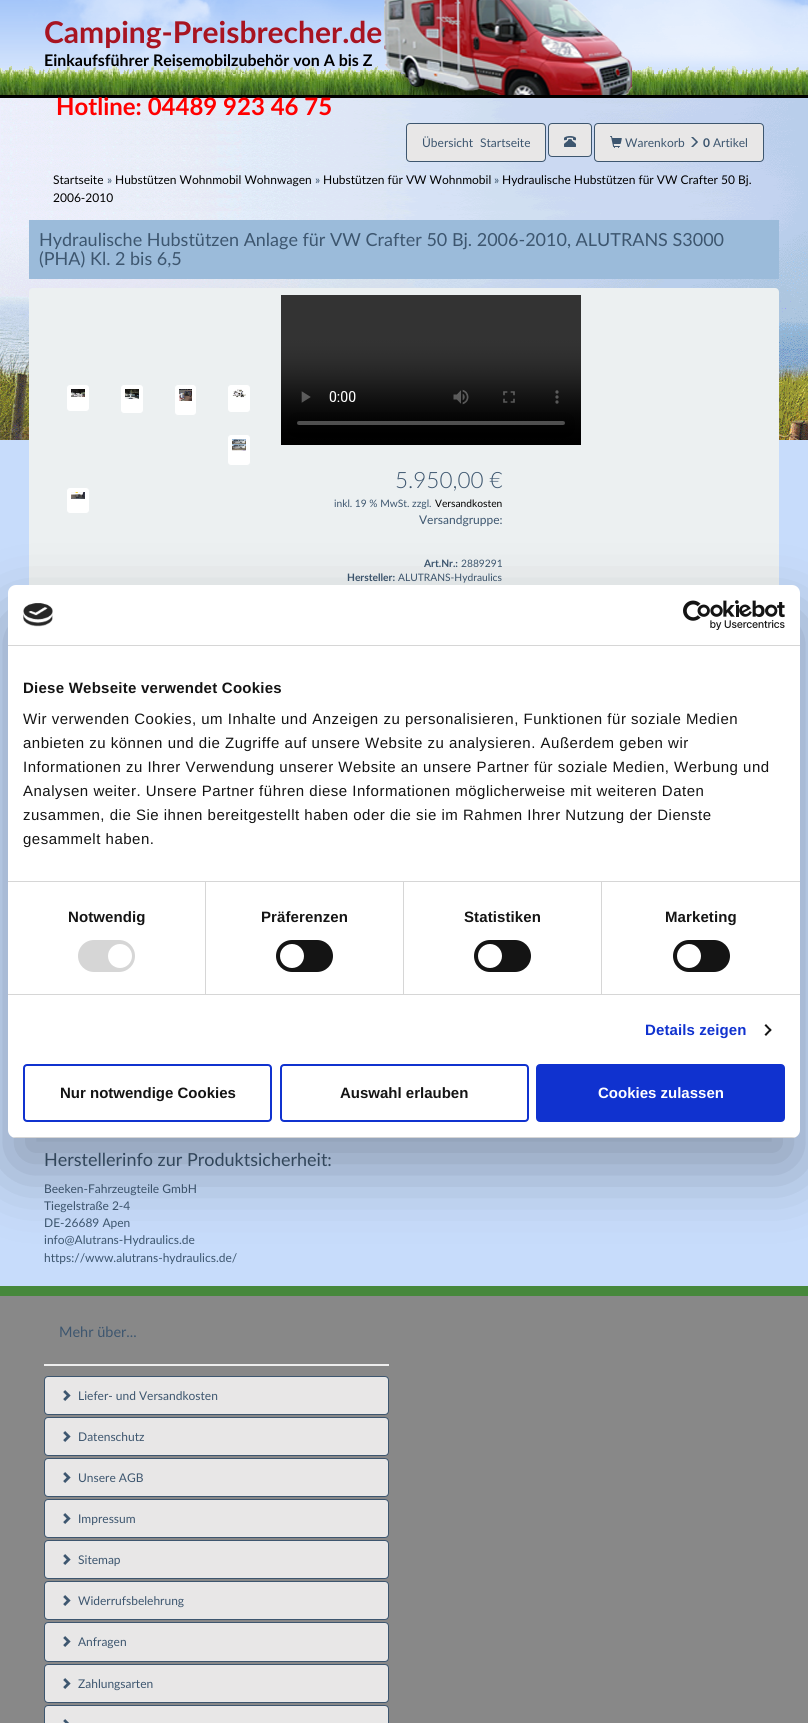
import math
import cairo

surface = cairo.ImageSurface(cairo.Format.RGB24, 808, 1723)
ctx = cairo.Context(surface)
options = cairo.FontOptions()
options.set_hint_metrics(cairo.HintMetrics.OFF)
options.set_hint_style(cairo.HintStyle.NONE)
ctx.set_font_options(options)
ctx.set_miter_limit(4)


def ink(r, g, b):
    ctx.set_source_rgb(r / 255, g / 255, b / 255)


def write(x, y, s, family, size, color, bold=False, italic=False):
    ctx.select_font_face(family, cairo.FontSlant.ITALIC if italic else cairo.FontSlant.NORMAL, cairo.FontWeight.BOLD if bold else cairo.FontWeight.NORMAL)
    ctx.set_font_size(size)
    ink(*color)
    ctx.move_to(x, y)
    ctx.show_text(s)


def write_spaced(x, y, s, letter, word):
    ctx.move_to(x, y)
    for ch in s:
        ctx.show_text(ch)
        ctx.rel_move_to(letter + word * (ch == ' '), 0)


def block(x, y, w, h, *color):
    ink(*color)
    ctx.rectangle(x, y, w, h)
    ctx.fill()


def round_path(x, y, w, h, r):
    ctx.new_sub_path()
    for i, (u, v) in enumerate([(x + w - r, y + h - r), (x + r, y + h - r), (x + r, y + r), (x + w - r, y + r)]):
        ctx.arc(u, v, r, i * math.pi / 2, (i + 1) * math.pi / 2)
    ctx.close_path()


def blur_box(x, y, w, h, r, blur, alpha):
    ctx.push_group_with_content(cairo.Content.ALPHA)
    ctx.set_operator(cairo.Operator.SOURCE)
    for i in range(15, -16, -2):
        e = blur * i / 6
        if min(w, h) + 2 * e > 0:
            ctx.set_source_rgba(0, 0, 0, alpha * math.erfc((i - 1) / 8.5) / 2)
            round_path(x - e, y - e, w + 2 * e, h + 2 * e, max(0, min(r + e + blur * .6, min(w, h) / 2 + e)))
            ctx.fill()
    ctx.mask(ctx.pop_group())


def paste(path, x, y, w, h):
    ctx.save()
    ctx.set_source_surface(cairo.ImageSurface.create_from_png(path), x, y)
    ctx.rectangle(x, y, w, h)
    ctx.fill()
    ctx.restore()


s1 = dict(family="Lato", size=30, color=(168, 20, 33), bold=True)
s2 = dict(family="Lato", size=16, color=(0, 0, 0), bold=True)
s3 = dict(family="Lato", size=24, color=(255, 0, 0), bold=True)
s4 = dict(family="Lato", size=12, color=(61, 86, 111))
s5 = dict(family="Lato", size=12, color=(61, 86, 111), bold=True)
s6 = dict(family="Lato", size=12, color=(0, 0, 0))
s7 = dict(family="Lato", size=18, color=(61, 86, 111))
s8 = dict(family="Lato Light", size=22.5, color=(61, 86, 111))
s9 = dict(family="Lato", size=10.25, color=(61, 86, 111))
s10 = dict(family="Lato", size=10.25, color=(0, 0, 0))
s11 = dict(family="Lato", size=10.25, color=(61, 86, 111), bold=True)
s12 = dict(family="Lato", size=14.5, color=(61, 86, 111))
s13 = dict(family="Liberation Sans", size=15, color=(20, 20, 20), bold=True)
s14 = dict(family="Liberation Sans", size=15, color=(255, 255, 255), bold=True)

ink(199, 220, 251)
ctx.paint()
paste("pic1.png", 0, 98, 808, 342)
paste("pic2.png", 0, 0, 808, 98)
write(44, 43, "Camping-Preisbrecher.de", **s1)
paste("pic3.png", 384, 0, 248, 95)
write(44, 66, "Einkaufsführer Reisemobilzubehör von A bis Z", **s2)
write(56, 115, "Hotline: 04489 923 46 75", **s3)
ink(232, 231, 231)
round_path(406.5, 123.5, 139, 38, 3.5)
ctx.fill_preserve()
ink(61, 86, 111)
ctx.set_line_width(1)
ctx.stroke()
write(422, 147, "Übersicht", **s4)
write(480, 147, "Startseite", **s4)
ink(232, 231, 231)
round_path(548.5, 123.5, 43, 33, 3.5)
ctx.fill_preserve()
ink(61, 86, 111)
ctx.stroke()
paste("pic4.png", 564, 136, 12, 11)
ink(232, 231, 231)
round_path(594.5, 123.5, 169, 38, 3.5)
ctx.fill_preserve()
ink(61, 86, 111)
ctx.stroke()
paste("pic5.png", 610, 136, 12, 12)
write(625, 147, "Warenkorb", **s4)
paste("pic6.png", 691, 137, 7, 10)
write(703, 147, "0", **s5)
write(713, 147, "Artikel", **s4)
write(53, 184, "Startseite", **s6)
write(107, 184, "»", **s4)
write(115, 184, "Hubstützen Wohnmobil Wohnwagen", **s6)
write(315, 184, "»", **s4)
write(323, 184, "Hubstützen für VW Wohnmobil", **s6)
write(494, 184, "»", **s4)
write(502, 184, "Hydraulische Hubstützen für VW Crafter 50 Bj.", **s6)
write(53, 202, "2006-2010", **s6)
block(29, 220, 750, 59, 155, 187, 218)
write(39, 246, "Hydraulische Hubstützen Anlage für VW Crafter 50 Bj. 2006-2010, ALUTRANS S3000", **s7)
write(39, 265, "(PHA) Kl. 2 bis 6,5", **s7)
ink(236, 240, 241)
round_path(29, 288, 750, 841, 4)
ctx.fill()
ink(255, 255, 255)
round_path(66.5, 384.5, 23, 27, 3.5)
ctx.fill_preserve()
ink(236, 240, 241)
ctx.stroke()
paste("pic7.png", 71, 389, 14, 8)
ink(255, 255, 255)
round_path(120.5, 384.5, 23, 29, 3.5)
ctx.fill_preserve()
ink(236, 240, 241)
ctx.stroke()
paste("pic8.png", 125, 389, 14, 10)
ink(255, 255, 255)
round_path(174.5, 384.5, 22, 31, 3.5)
ctx.fill_preserve()
ink(236, 240, 241)
ctx.stroke()
paste("pic9.png", 179, 389, 13, 12)
ink(255, 255, 255)
round_path(227.5, 384.5, 23, 28, 3.5)
ctx.fill_preserve()
ink(236, 240, 241)
ctx.stroke()
paste("pic10.png", 232, 389, 14, 9)
ink(255, 255, 255)
round_path(227.5, 434.5, 23, 31, 3.5)
ctx.fill_preserve()
ink(236, 240, 241)
ctx.stroke()
paste("pic11.png", 232, 439, 14, 12)
ink(255, 255, 255)
round_path(66.5, 487.5, 23, 26, 3.5)
ctx.fill_preserve()
ink(236, 240, 241)
ctx.stroke()
paste("pic12.png", 71, 492, 14, 7)
paste("pic13.png", 281, 295, 300, 150)
write(395, 488, "5.950,00 €", **s8)
write(334, 507, "inkl. 19 % MwSt. zzgl.", **s9)
write(435, 507, "Versandkosten", **s10)
write(419, 524, "Versandgruppe:", **s4)
write(424, 567, "Art.Nr.:", **s11)
write(461, 567, "2889291", **s9)
write(347, 581, "Hersteller:", **s11)
write(398, 581, "ALUTRANS-Hydraulics", **s9)
write(44, 1166, "Herstellerinfo zur Produktsicherheit:", **s7)
write(44, 1193, "Beeken-Fahrzeugteile GmbH", **s4)
write(44, 1210, "Tiegelstraße 2-4", **s4)
write(44, 1227, "DE-26689 Apen", **s4)
write(44, 1244, "info@Alutrans-Hydraulics.de", **s4)
write(44, 1262, "https://www.alutrans-hydraulics.de/", **s4)
block(0, 1296, 808, 427, 136, 136, 136)
block(0, 1286, 808, 10, 70, 136, 59)
block(44, 1364, 345, 2, 238, 238, 238)
write(59, 1337, "Mehr über...", **s12)
ink(232, 231, 231)
round_path(44.5, 1376.5, 344, 38, 3.5)
ctx.fill_preserve()
ink(61, 86, 111)
ctx.stroke()
paste("pic14.png", 63, 1390, 8, 11)
write(78, 1400, "Liefer- und Versandkosten", **s4)
ink(232, 231, 231)
round_path(44.5, 1417.5, 344, 38, 3.5)
ctx.fill_preserve()
ink(61, 86, 111)
ctx.stroke()
paste("pic14.png", 63, 1431, 8, 11)
write(78, 1441, "Datenschutz", **s4)
ink(232, 231, 231)
round_path(44.5, 1458.5, 344, 38, 3.5)
ctx.fill_preserve()
ink(61, 86, 111)
ctx.stroke()
paste("pic14.png", 63, 1472, 8, 11)
write(78, 1482, "Unsere AGB", **s4)
ink(232, 231, 231)
round_path(44.5, 1499.5, 344, 38, 3.5)
ctx.fill_preserve()
ink(61, 86, 111)
ctx.stroke()
paste("pic14.png", 63, 1513, 8, 11)
write(78, 1523, "Impressum", **s4)
ink(232, 231, 231)
round_path(44.5, 1540.5, 344, 38, 3.5)
ctx.fill_preserve()
ink(61, 86, 111)
ctx.stroke()
paste("pic14.png", 63, 1554, 8, 11)
write(78, 1564, "Sitemap", **s4)
ink(232, 231, 231)
round_path(44.5, 1581.5, 344, 38, 3.5)
ctx.fill_preserve()
ink(61, 86, 111)
ctx.stroke()
paste("pic14.png", 63, 1595, 8, 11)
write(78, 1605, "Widerrufsbelehrung", **s4)
ink(232, 231, 231)
round_path(44.5, 1622.5, 344, 39, 3.5)
ctx.fill_preserve()
ink(61, 86, 111)
ctx.stroke()
paste("pic14.png", 63, 1636, 8, 11)
write(78, 1646, "Anfragen", **s4)
ink(232, 231, 231)
round_path(44.5, 1664.5, 344, 38, 3.5)
ctx.fill_preserve()
ink(61, 86, 111)
ctx.stroke()
paste("pic14.png", 63, 1678, 8, 11)
write(78, 1688, "Zahlungsarten", **s4)
ink(232, 231, 231)
round_path(44.5, 1705.5, 344, 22, 3.5)
ctx.fill_preserve()
ink(61, 86, 111)
ctx.stroke()
paste("pic15.png", 63, 1719, 6, 4)
ink(0, 0, 0)
blur_box(8, 617, 792, 553, 8, 34, 0.3)
ink(255, 255, 255)
round_path(8, 585, 792, 553, 8)
ctx.fill()
block(8, 645, 792, 1, 214, 214, 214)
paste("pic16.png", 23, 603, 30, 24)
paste("pic17.png", 683, 600, 102, 30)
block(8, 881, 792, 1, 214, 214, 214)
ctx.select_font_face("Liberation Sans", cairo.FontSlant.NORMAL, cairo.FontWeight.BOLD)
ctx.set_font_size(15)
ink(20, 20, 20)
write_spaced(23, 693, "Diese Webseite verwendet Cookies", 0.25, 0)
ctx.select_font_face("Liberation Sans")
write_spaced(23, 724, "Wir verwenden Cookies, um Inhalte und Anzeigen zu personalisieren, Funktionen für soziale Medien", 0.5, 0)
write_spaced(23, 748, "anbieten zu können und die Zugriffe auf unsere Website zu analysieren. Außerdem geben wir", 0.5, 0)
write_spaced(23, 772, "Informationen zu Ihrer Verwendung unserer Website an unsere Partner für soziale Medien, Werbung und", 0.5, 0)
write_spaced(23, 796, "Analysen weiter. Unsere Partner führen diese Informationen möglicherweise mit weiteren Daten", 0.5, 0)
write_spaced(23, 820, "zusammen, die Sie ihnen bereitgestellt haben oder die sie im Rahmen Ihrer Nutzung der Dienste", 0.5, 0)
write_spaced(23, 844, "gesammelt haben.", 0.5, 0)
block(8, 994, 792, 1, 214, 214, 214)
block(205, 882, 1, 112, 214, 214, 214)
ctx.select_font_face("Liberation Sans", cairo.FontSlant.NORMAL, cairo.FontWeight.BOLD)
ink(20, 20, 20)
write_spaced(68, 922, "Notwendig", 0.1, 0)
ink(214, 214, 214)
round_path(78, 940, 57, 32, 16)
ctx.fill()
ink(255, 255, 255)
ctx.arc(120, 956, 12, 0, 2 * math.pi)
ctx.fill()
block(403, 882, 1, 112, 214, 214, 214)
ink(20, 20, 20)
write_spaced(261, 922, "Präferenzen", 0.1, 0)
round_path(276, 940, 57, 32, 16)
ctx.fill()
ink(255, 255, 255)
ctx.arc(292, 956, 12, 0, 2 * math.pi)
ctx.fill()
block(601, 882, 1, 112, 214, 214, 214)
ink(20, 20, 20)
write_spaced(464, 922, "Statistiken", 0.1, 0)
round_path(474, 940, 57, 32, 16)
ctx.fill()
ink(255, 255, 255)
ctx.arc(490, 956, 12, 0, 2 * math.pi)
ctx.fill()
ink(20, 20, 20)
write_spaced(665, 922, "Marketing", 0.1, 0)
round_path(673, 940, 57, 32, 16)
ctx.fill()
ink(255, 255, 255)
ctx.arc(689, 956, 12, 0, 2 * math.pi)
ctx.fill()
ink(16, 50, 207)
write_spaced(645, 1035, "Details zeigen", 0.1, 0)
ink(20, 20, 20)
ctx.new_path()
ctx.move_to(766, 1024)
ctx.line_to(771.5, 1030)
ctx.line_to(770.5, 1031.5)
ctx.line_to(764.5, 1025.5)
ctx.close_path()
ctx.fill()
ctx.new_path()
ctx.move_to(770.5, 1028.5)
ctx.line_to(771.5, 1030)
ctx.line_to(766, 1036)
ctx.line_to(764.5, 1034.5)
ctx.close_path()
ctx.fill()
ctx.save()
round_path(8, 585, 792, 553, 8)
ctx.clip()
block(8, 1137, 792, 1, 214, 214, 214)
ctx.restore()
round_path(24, 1065, 247, 56, 3)
ink(16, 50, 207)
ctx.set_line_width(2)
ctx.stroke()
write(60, 1098, "Nur notwendige Cookies", **s13)
round_path(281, 1065, 247, 56, 3)
ink(16, 50, 207)
ctx.stroke()
write(340, 1098, "Auswahl erlauben", **s13)
ink(16, 50, 207)
round_path(537, 1065, 247, 56, 3)
ctx.fill_preserve()
ctx.stroke()
write(598, 1098, "Cookies zulassen", **s14)
surface.write_to_png("screenshot.png")
